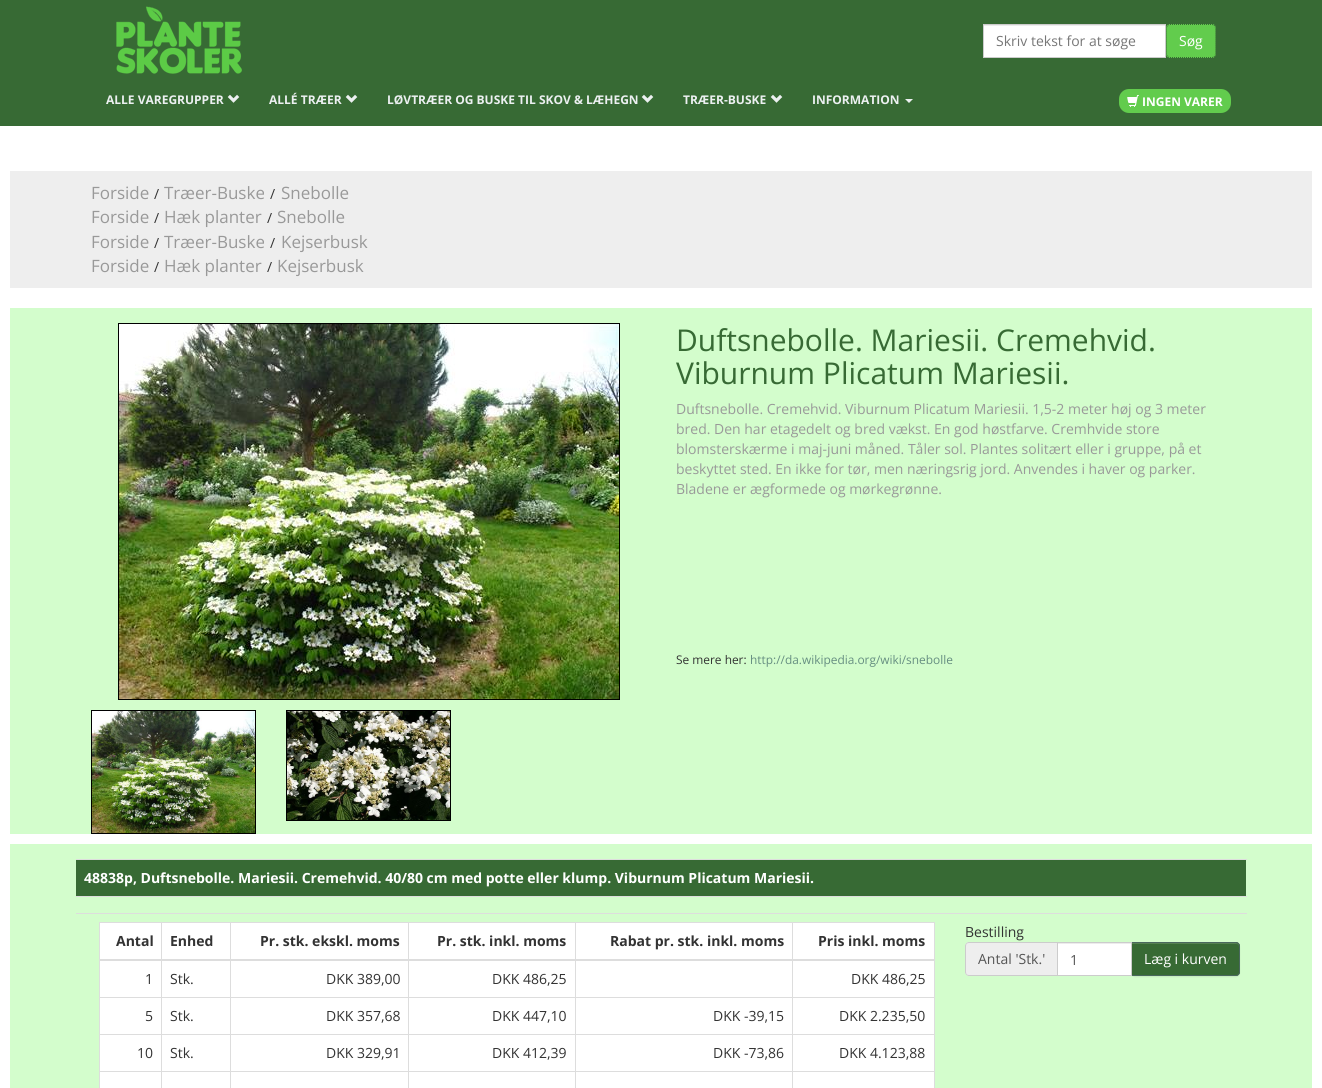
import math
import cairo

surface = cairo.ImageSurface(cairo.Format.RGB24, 1322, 1088)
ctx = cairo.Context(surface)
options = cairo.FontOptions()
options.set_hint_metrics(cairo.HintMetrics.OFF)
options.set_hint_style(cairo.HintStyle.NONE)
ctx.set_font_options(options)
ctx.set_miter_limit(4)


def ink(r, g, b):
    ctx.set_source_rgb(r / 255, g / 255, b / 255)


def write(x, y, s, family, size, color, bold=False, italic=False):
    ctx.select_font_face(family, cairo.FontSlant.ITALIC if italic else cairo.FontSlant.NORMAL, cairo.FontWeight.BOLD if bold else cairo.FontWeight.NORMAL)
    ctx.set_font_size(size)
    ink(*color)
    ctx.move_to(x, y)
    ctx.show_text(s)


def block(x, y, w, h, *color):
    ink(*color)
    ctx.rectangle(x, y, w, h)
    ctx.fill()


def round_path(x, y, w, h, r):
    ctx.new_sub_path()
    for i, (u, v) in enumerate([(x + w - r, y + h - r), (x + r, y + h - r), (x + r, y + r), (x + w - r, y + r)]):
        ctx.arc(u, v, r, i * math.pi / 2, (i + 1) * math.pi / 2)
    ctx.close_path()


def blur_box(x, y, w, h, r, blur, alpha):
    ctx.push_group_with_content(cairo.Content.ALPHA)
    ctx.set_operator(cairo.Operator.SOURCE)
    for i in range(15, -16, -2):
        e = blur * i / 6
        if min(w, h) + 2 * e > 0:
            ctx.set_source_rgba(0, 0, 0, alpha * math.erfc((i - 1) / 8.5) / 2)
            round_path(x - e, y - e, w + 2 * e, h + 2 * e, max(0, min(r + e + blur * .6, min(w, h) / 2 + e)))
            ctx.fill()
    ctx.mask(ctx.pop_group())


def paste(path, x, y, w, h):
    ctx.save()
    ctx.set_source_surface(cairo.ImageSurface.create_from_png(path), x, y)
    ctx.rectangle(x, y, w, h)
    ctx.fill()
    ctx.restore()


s1 = dict(family="Open Sans", size=14, color=(119, 119, 119))
s2 = dict(family="Open Sans", size=14, color=(255, 255, 255))
s3 = dict(family="Open Sans", size=12, color=(236, 240, 241), bold=True)
s4 = dict(family="Open Sans", size=12, color=(255, 255, 255), bold=True)
s5 = dict(family="Open Sans", size=17, color=(153, 153, 153))
s6 = dict(family="Open Sans", size=14, color=(51, 51, 51))
s7 = dict(family="Open Sans", size=30, color=(55, 106, 52))
s8 = dict(family="Open Sans", size=14, color=(153, 153, 153))
s9 = dict(family="Open Sans", size=11.9, color=(51, 51, 51))
s10 = dict(family="Open Sans", size=11.9, color=(102, 142, 129))
s11 = dict(family="Open Sans", size=14, color=(255, 255, 255), bold=True)
s12 = dict(family="Open Sans", size=14, color=(51, 51, 51), bold=True)
s13 = dict(family="Open Sans", size=14, color=(85, 85, 85))

ink(255, 255, 255)
ctx.paint()
block(0, 0, 1322, 126, 55, 106, 52)
paste("pic1.png", 116, 6, 126, 68)
block(984, 26, 181, 31, 255, 255, 255)
block(984, 25, 181, 1, 236, 236, 236)
ctx.rectangle(983.5, 24.5, 182, 33)
ink(204, 204, 204)
ctx.set_line_width(1)
ctx.stroke()
write(996, 46, "Skriv tekst for at søge", **s1)
ink(98, 204, 77)
round_path(1166, 24, 50, 34, 4)
ctx.fill()
ctx.new_path()
ctx.move_to(1170, 24.5)
ctx.line_to(1212, 24.5)
ctx.curve_to(1214, 24.5, 1215.5, 26, 1215.5, 28)
ctx.line_to(1215.5, 54)
ctx.curve_to(1215.5, 56, 1214, 57.5, 1212, 57.5)
ctx.line_to(1170, 57.5)
ctx.curve_to(1168, 57.5, 1166.5, 56, 1166.5, 54)
ctx.line_to(1166.5, 28)
ctx.curve_to(1166.5, 26, 1168, 24.5, 1170, 24.5)
ctx.close_path()
ink(55, 106, 52)
ctx.set_dash([1, 1])
ctx.stroke()
write(1179, 46, "Søg", **s2)
write(106, 104, "ALLE VAREGRUPPER", **s3)
paste("pic2.png", 227, 94, 13, 9)
write(269, 104, "ALLÉ TRÆER", **s3)
paste("pic2.png", 345, 94, 13, 9)
write(387, 104, "LØVTRÆER OG BUSKE TIL SKOV & LÆHEGN", **s3)
paste("pic2.png", 641, 94, 13, 9)
write(683, 104, "TRÆER-BUSKE", **s3)
paste("pic2.png", 770, 94, 13, 9)
write(812, 104, "INFORMATION", **s3)
ctx.new_path()
ctx.move_to(905, 99)
ctx.line_to(913, 99)
ctx.line_to(909, 103)
ctx.close_path()
ctx.fill()
ink(98, 204, 77)
round_path(1119, 89, 112, 24, 10)
ctx.fill()
paste("pic3.png", 1127, 95, 12, 12)
write(1142, 106, "INGEN VARER", **s4)
block(10, 171, 1302, 117, 238, 238, 238)
write(91, 199, "Forside", **s5)
write(154, 199, "/", **s6)
write(164, 199, "Træer-Buske", **s5)
write(270, 199, "/", **s6)
write(281, 199, "Snebolle", **s5)
write(91, 223, "Forside", **s5)
write(154, 223, "/", **s6)
write(164, 223, "Hæk planter", **s5)
write(267, 223, "/", **s6)
write(277, 223, "Snebolle", **s5)
write(91, 248, "Forside", **s5)
write(154, 248, "/", **s6)
write(164, 248, "Træer-Buske", **s5)
write(270, 248, "/", **s6)
write(281, 248, "Kejserbusk", **s5)
write(91, 272, "Forside", **s5)
write(154, 272, "/", **s6)
write(164, 272, "Hæk planter", **s5)
write(267, 272, "/", **s6)
write(277, 272, "Kejserbusk", **s5)
block(10, 308, 1302, 526, 211, 253, 204)
ctx.rectangle(118.5, 323.5, 501, 376)
ink(0, 0, 0)
ctx.set_dash([])
ctx.stroke()
paste("pic4.png", 119, 324, 500, 375)
ctx.rectangle(91.5, 710.5, 164, 123)
ctx.stroke()
paste("pic5.png", 92, 711, 163, 122)
ctx.rectangle(286.5, 710.5, 164, 110)
ctx.stroke()
paste("pic6.png", 287, 711, 163, 109)
write(676, 351, "Duftsnebolle. Mariesii. Cremehvid.", **s7)
write(676, 384, "Viburnum Plicatum Mariesii.", **s7)
write(676, 414, "Duftsnebolle. Cremehvid. Viburnum Plicatum Mariesii. 1,5-2 meter høj og 3 meter", **s8)
write(676, 434, "bred. Den har etagedelt og bred vækst. En god høstfarve. Cremhvide store", **s8)
write(676, 454, "blomsterskærme i maj-juni måned. Tåler sol. Plantes solitært eller i gruppe, på et", **s8)
write(676, 474, "beskyttet sted. En ikke for tør, men næringsrig jord. Anvendes i haver og parker.", **s8)
write(676, 494, "Bladene er ægformede og mørkegrønne.", **s8)
write(676, 664, "Se mere her:", **s9)
write(750, 664, "http://da.wikipedia.org/wiki/snebolle", **s10)
block(10, 844, 1302, 244, 211, 253, 204)
block(76, 860, 1170, 36, 55, 106, 52)
block(76, 859, 1171, 1, 221, 221, 221)
write(84, 883, "48838p, Duftsnebolle. Mariesii. Cremehvid. 40/80 cm med potte eller klump. Viburnum Plicatum Mariesii.", **s11)
block(76, 896, 1171, 1, 221, 221, 221)
block(76, 913, 1171, 1, 221, 221, 221)
block(100, 923, 834, 165, 255, 255, 255)
block(99, 922, 836, 1, 221, 221, 221)
block(934, 922, 1, 166, 221, 221, 221)
block(99, 922, 1, 166, 221, 221, 221)
write(116, 946, "Antal", **s12)
write(170, 946, "Enhed", **s12)
write(260, 946, "Pr. stk. ekskl. moms", **s12)
write(437, 946, "Pr. stk. inkl. moms", **s12)
write(610, 946, "Rabat pr. stk. inkl. moms", **s12)
block(792, 997, 143, 1, 221, 221, 221)
block(792, 1034, 143, 1, 221, 221, 221)
block(792, 1071, 143, 1, 221, 221, 221)
block(792, 1071, 1, 17, 221, 221, 221)
block(575, 1071, 218, 1, 221, 221, 221)
block(792, 1034, 1, 38, 221, 221, 221)
block(575, 1034, 218, 1, 221, 221, 221)
block(792, 997, 1, 38, 221, 221, 221)
block(575, 997, 218, 1, 221, 221, 221)
block(575, 1071, 1, 17, 221, 221, 221)
block(408, 1071, 168, 1, 221, 221, 221)
block(575, 1034, 1, 38, 221, 221, 221)
block(408, 1034, 168, 1, 221, 221, 221)
block(575, 997, 1, 38, 221, 221, 221)
block(408, 997, 168, 1, 221, 221, 221)
block(408, 1071, 1, 17, 221, 221, 221)
block(230, 1071, 179, 1, 221, 221, 221)
block(408, 1034, 1, 38, 221, 221, 221)
block(230, 1034, 179, 1, 221, 221, 221)
block(408, 997, 1, 38, 221, 221, 221)
block(230, 997, 179, 1, 221, 221, 221)
block(230, 1071, 1, 17, 221, 221, 221)
block(161, 1071, 70, 1, 221, 221, 221)
block(230, 1034, 1, 38, 221, 221, 221)
block(161, 1034, 70, 1, 221, 221, 221)
block(230, 997, 1, 38, 221, 221, 221)
block(161, 997, 70, 1, 221, 221, 221)
block(161, 1071, 1, 17, 221, 221, 221)
block(99, 1071, 63, 1, 221, 221, 221)
block(161, 1034, 1, 38, 221, 221, 221)
block(99, 1034, 63, 1, 221, 221, 221)
block(161, 997, 1, 38, 221, 221, 221)
block(99, 997, 63, 1, 221, 221, 221)
block(161, 922, 1, 76, 221, 221, 221)
block(230, 922, 1, 76, 221, 221, 221)
block(408, 922, 1, 76, 221, 221, 221)
block(575, 922, 1, 76, 221, 221, 221)
block(792, 922, 1, 76, 221, 221, 221)
block(99, 959, 836, 2, 221, 221, 221)
write(818, 946, "Pris inkl. moms", **s12)
write(145, 984, "1", **s6)
write(170, 984, "Stk.", **s6)
write(326, 984, "DKK 389,00", **s6)
write(492, 984, "DKK 486,25", **s6)
write(851, 984, "DKK 486,25", **s6)
write(145, 1021, "5", **s6)
write(170, 1021, "Stk.", **s6)
write(326, 1021, "DKK 357,68", **s6)
write(492, 1021, "DKK 447,10", **s6)
write(713, 1021, "DKK -39,15", **s6)
write(839, 1021, "DKK 2.235,50", **s6)
write(137, 1058, "10", **s6)
write(170, 1058, "Stk.", **s6)
write(326, 1058, "DKK 329,91", **s6)
write(492, 1058, "DKK 412,39", **s6)
write(713, 1058, "DKK -73,86", **s6)
write(839, 1058, "DKK 4.123,88", **s6)
write(965, 937, "Bestilling", **s6)
ink(238, 238, 238)
ctx.new_path()
ctx.move_to(969, 942)
ctx.line_to(1057, 942)
ctx.line_to(1057, 976)
ctx.line_to(969, 976)
ctx.curve_to(967, 976, 965, 974, 965, 972)
ctx.line_to(965, 946)
ctx.curve_to(965, 944, 967, 942, 969, 942)
ctx.close_path()
ctx.fill()
ink(204, 204, 204)
ctx.set_fill_rule(cairo.FillRule.EVEN_ODD)
ctx.new_path()
ctx.move_to(969, 942)
ctx.line_to(1057, 942)
ctx.line_to(1057, 976)
ctx.line_to(969, 976)
ctx.curve_to(967, 976, 965, 974, 965, 972)
ctx.line_to(965, 946)
ctx.curve_to(965, 944, 967, 942, 969, 942)
ctx.close_path()
ctx.move_to(969, 943)
ctx.line_to(1057, 943)
ctx.line_to(1057, 975)
ctx.line_to(969, 975)
ctx.curve_to(967, 975, 966, 974, 966, 972)
ctx.line_to(966, 946)
ctx.curve_to(966, 944, 967, 943, 969, 943)
ctx.close_path()
ctx.fill()
write(978, 964, "Antal 'Stk.'", **s13)
ink(0, 0, 0)
blur_box(1131, 943, 109, 34, 4, 0.5, 0.07)
block(1058, 944, 73, 31, 255, 255, 255)
block(1058, 943, 73, 1, 236, 236, 236)
ink(55, 106, 52)
ctx.new_path()
ctx.move_to(1131, 942)
ctx.line_to(1236, 942)
ctx.curve_to(1238, 942, 1240, 944, 1240, 946)
ctx.line_to(1240, 972)
ctx.curve_to(1240, 974, 1238, 976, 1236, 976)
ctx.line_to(1131, 976)
ctx.close_path()
ctx.fill()
ink(85, 128, 82)
ctx.set_fill_rule(cairo.FillRule.WINDING)
ctx.new_path()
ctx.move_to(1132, 944)
ctx.line_to(1236, 944)
ctx.curve_to(1238, 944, 1239, 945, 1239, 947)
ctx.line_to(1239, 946)
ctx.curve_to(1239, 944, 1238, 943, 1236, 943)
ctx.line_to(1132, 943)
ctx.close_path()
ctx.fill()
ctx.new_path()
ctx.move_to(1131.5, 942.5)
ctx.line_to(1236, 942.5)
ctx.curve_to(1238, 942.5, 1239.5, 944, 1239.5, 946)
ctx.line_to(1239.5, 972)
ctx.curve_to(1239.5, 974, 1238, 975.5, 1236, 975.5)
ctx.line_to(1131.5, 975.5)
ctx.close_path()
ink(74, 104, 94)
ctx.stroke()
ctx.rectangle(1057.5, 942.5, 74, 33)
ink(204, 204, 204)
ctx.stroke()
write(1070, 965, "1", **s13)
write(1144, 964, "Læg i kurven", **s2)
surface.write_to_png("screenshot.png")
